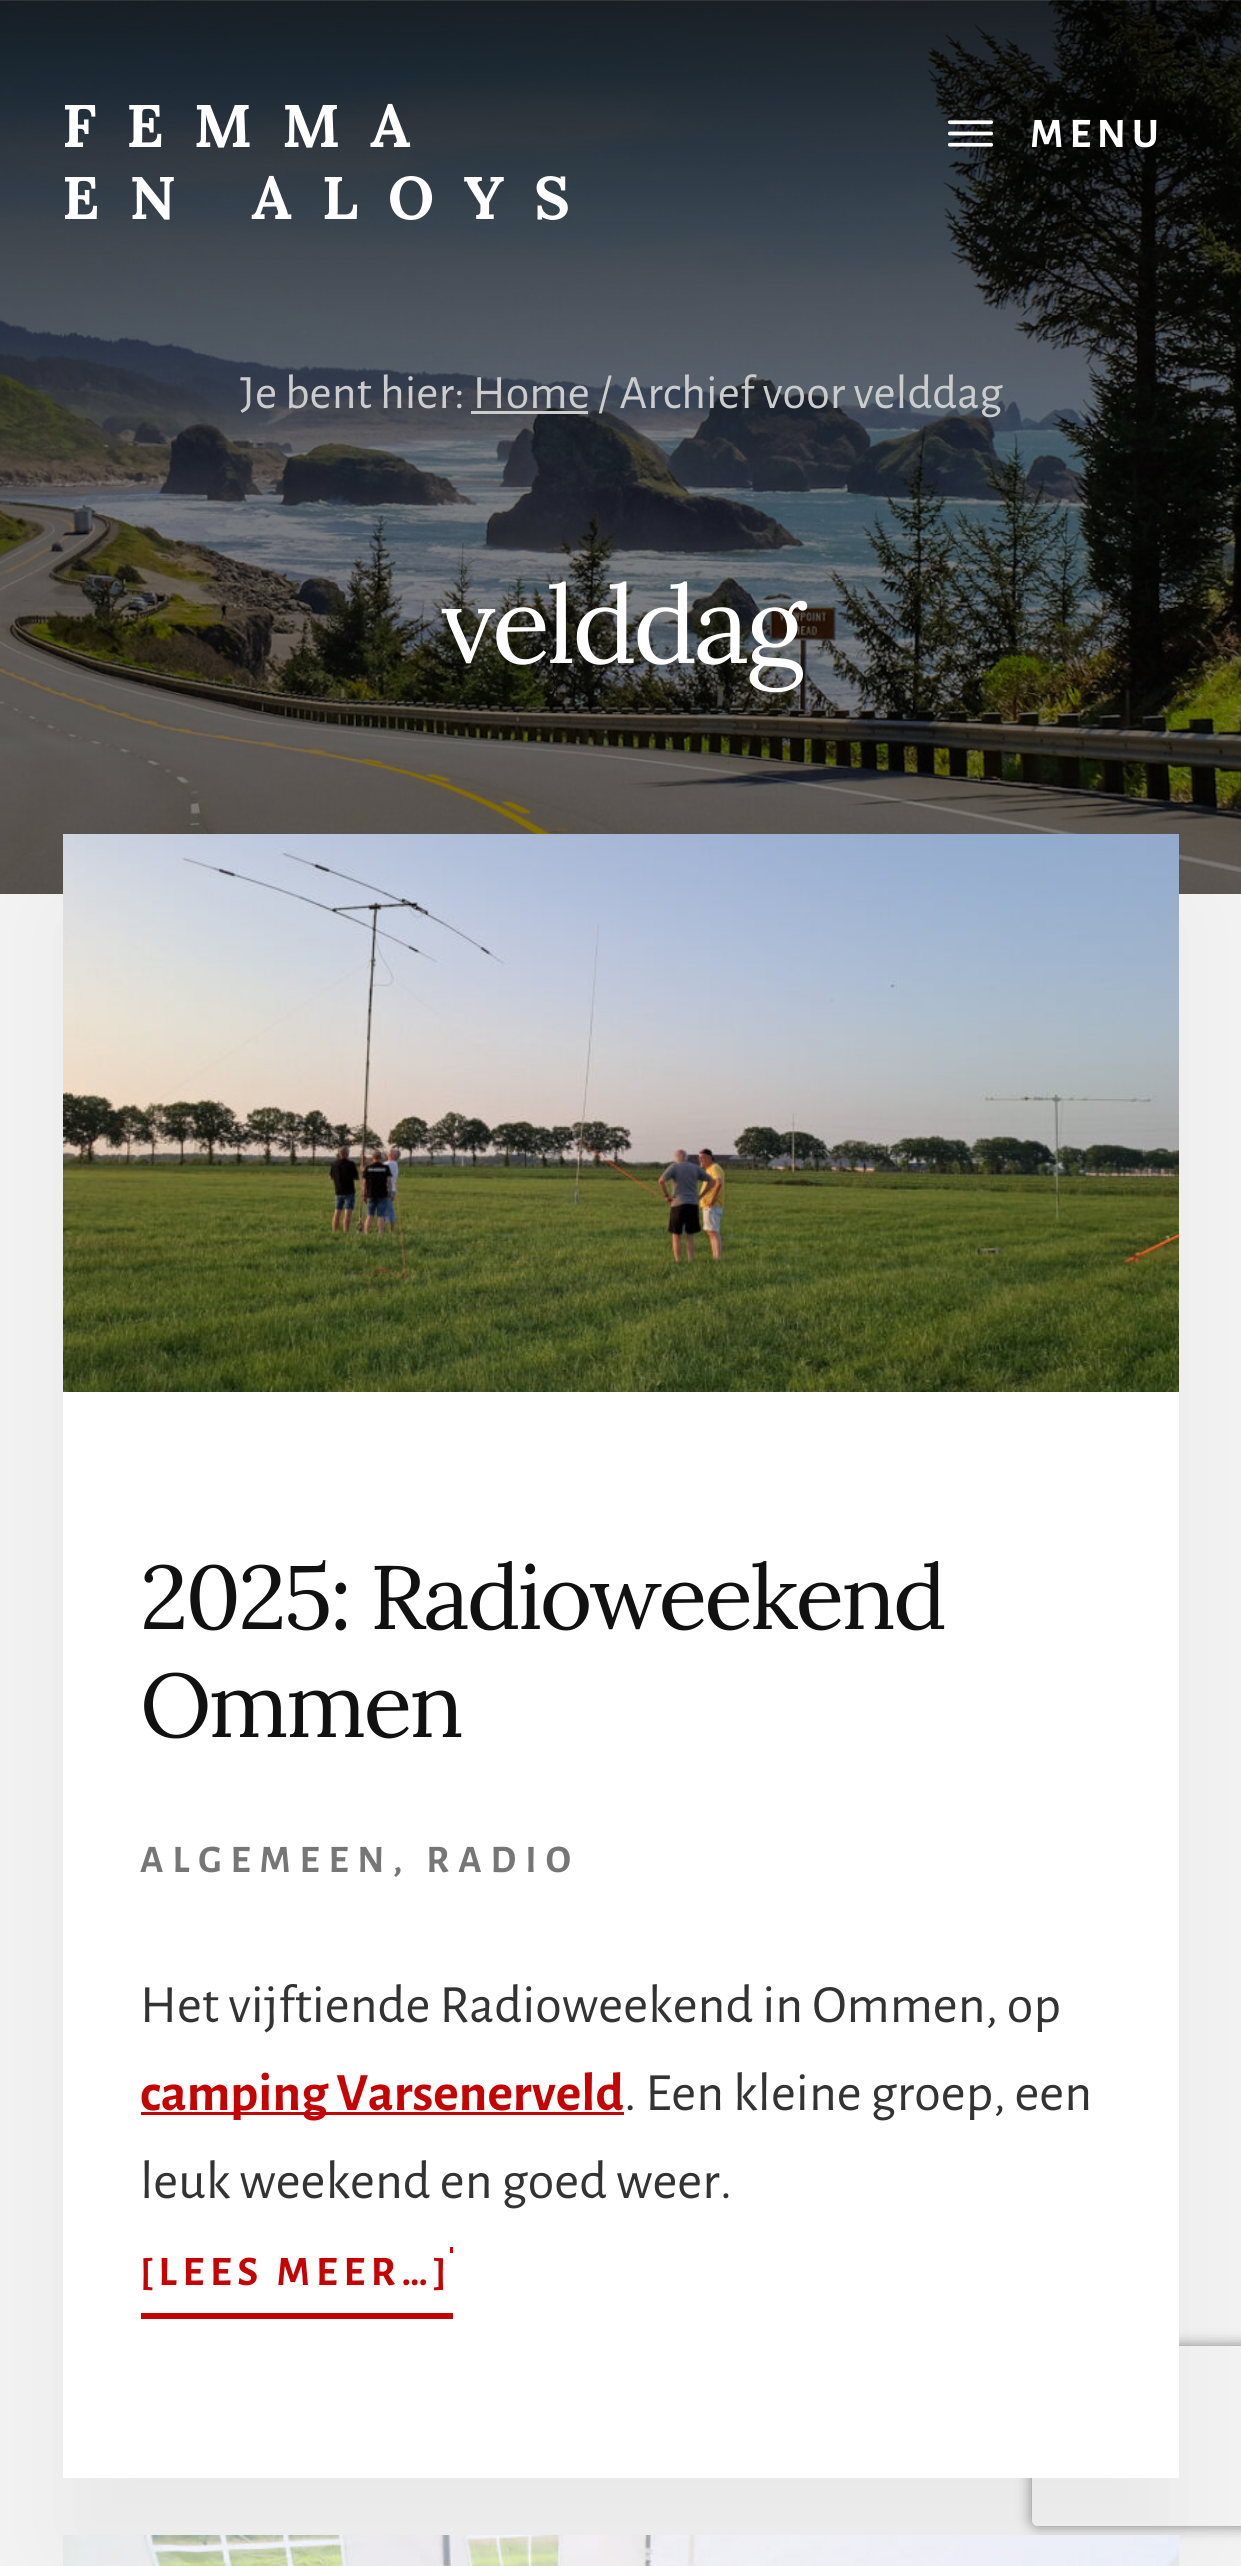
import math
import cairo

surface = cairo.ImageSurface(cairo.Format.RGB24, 1241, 2566)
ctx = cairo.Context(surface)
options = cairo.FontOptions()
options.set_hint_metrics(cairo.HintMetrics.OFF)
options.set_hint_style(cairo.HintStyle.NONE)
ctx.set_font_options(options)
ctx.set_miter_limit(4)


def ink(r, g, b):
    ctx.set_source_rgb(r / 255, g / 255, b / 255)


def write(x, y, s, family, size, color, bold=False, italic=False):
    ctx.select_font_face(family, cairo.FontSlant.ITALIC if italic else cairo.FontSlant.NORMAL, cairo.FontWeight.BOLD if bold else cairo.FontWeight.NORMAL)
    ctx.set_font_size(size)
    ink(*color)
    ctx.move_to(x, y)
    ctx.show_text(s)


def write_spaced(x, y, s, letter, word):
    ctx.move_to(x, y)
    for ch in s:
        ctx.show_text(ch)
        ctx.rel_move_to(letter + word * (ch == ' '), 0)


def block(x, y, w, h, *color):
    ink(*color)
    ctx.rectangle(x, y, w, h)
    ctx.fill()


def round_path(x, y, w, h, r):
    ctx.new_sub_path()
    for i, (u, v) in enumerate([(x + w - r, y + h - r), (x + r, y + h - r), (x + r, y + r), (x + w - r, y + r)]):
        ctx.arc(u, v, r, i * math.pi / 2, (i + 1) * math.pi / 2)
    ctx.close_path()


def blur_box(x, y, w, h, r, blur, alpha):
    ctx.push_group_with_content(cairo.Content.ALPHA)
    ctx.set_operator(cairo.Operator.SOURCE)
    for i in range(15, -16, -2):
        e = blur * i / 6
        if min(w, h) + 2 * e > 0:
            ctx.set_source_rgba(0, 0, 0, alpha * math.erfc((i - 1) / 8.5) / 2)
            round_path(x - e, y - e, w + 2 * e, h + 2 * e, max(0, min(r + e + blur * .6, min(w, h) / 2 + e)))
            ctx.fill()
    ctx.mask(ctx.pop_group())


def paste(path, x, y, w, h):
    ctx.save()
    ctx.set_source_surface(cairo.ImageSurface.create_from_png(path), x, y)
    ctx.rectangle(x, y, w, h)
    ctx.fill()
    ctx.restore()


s1 = dict(family="Alegreya Sans", size=48, color=(204, 204, 204))
s2 = dict(family="Alegreya Sans", size=54, color=(51, 51, 51))
s3 = dict(family="Alegreya Sans", size=54, color=(198, 3, 3), bold=True)

ink(244, 244, 244)
ctx.paint()
paste("pic1.png", 0, 0, 1241, 894)
ctx.select_font_face("Lora", cairo.FontSlant.NORMAL, cairo.FontWeight.BOLD)
ctx.set_font_size(60)
ink(255, 255, 255)
write_spaced(62, 147, "FEMMA", 30, 0)
write_spaced(62, 219, "EN ALOYS", 30, 0)
paste("pic2.png", 948, 120, 45, 27)
ctx.select_font_face("Alegreya Sans", cairo.FontSlant.NORMAL, cairo.FontWeight.BOLD)
ctx.set_font_size(42)
write_spaced(1030, 147, "MENU", 6, 0)
write(240, 408, "Je bent hier: Home / Archief voor velddag", **s1)
block(471, 411, 117, 3, 204, 204, 204)
ctx.select_font_face("Lora")
ctx.set_font_size(108)
ink(255, 255, 255)
write_spaced(441, 663, "velddag", -3.75, 0)
ink(0, 0, 0)
blur_box(63, 909, 1116, 1644, 0, 60, 0.05)
ctx.save()
ctx.set_fill_rule(cairo.FillRule.EVEN_ODD)
ctx.new_path()
ctx.move_to(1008, 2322)
ctx.line_to(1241, 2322)
ctx.line_to(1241, 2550)
ctx.line_to(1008, 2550)
ctx.close_path()
ctx.move_to(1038, 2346)
ctx.line_to(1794, 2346)
ctx.curve_to(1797.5, 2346, 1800, 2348.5, 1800, 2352)
ctx.line_to(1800, 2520)
ctx.curve_to(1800, 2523.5, 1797.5, 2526, 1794, 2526)
ctx.line_to(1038, 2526)
ctx.curve_to(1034.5, 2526, 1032, 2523.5, 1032, 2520)
ctx.line_to(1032, 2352)
ctx.curve_to(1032, 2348.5, 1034.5, 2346, 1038, 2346)
ctx.close_path()
ctx.clip()
ink(128, 128, 128)
blur_box(1032, 2346, 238, 180, 6, 7.5, 1)
ctx.restore()
block(63, 1392, 1116, 1086, 255, 255, 255)
paste("pic3.png", 63, 834, 1116, 558)
ctx.set_font_size(90)
ink(17, 17, 17)
write_spaced(140, 1629, "2025: Radioweekend", -3, 0)
write_spaced(140, 1737, "Ommen", -3, 0)
ctx.select_font_face("Alegreya Sans", cairo.FontSlant.NORMAL, cairo.FontWeight.BOLD)
ctx.set_font_size(39)
ink(118, 118, 118)
write_spaced(140, 1872, "ALGEMEEN, RADIO", 9, 0)
write(140, 2022, "Het vijftiende Radioweekend in Ommen, op", **s2)
block(141, 2112, 483, 3, 198, 3, 3)
write(140, 2110, "camping Varsenerveld", **s3)
write(624, 2110, ". Een kleine groep, een", **s2)
write(140, 2198, "leuk weekend en goed weer.", **s2)
ctx.select_font_face("Alegreya Sans", cairo.FontSlant.NORMAL, cairo.FontWeight.BOLD)
ctx.set_font_size(42)
ink(198, 3, 3)
write_spaced(140, 2285, "[LEES MEER…]", 6, 0)
block(141, 2313, 312, 6, 198, 3, 3)
block(450, 2247, 3, 6, 198, 3, 3)
paste("pic4.png", 63, 2535, 1116, 31)
surface.write_to_png("screenshot.png")
